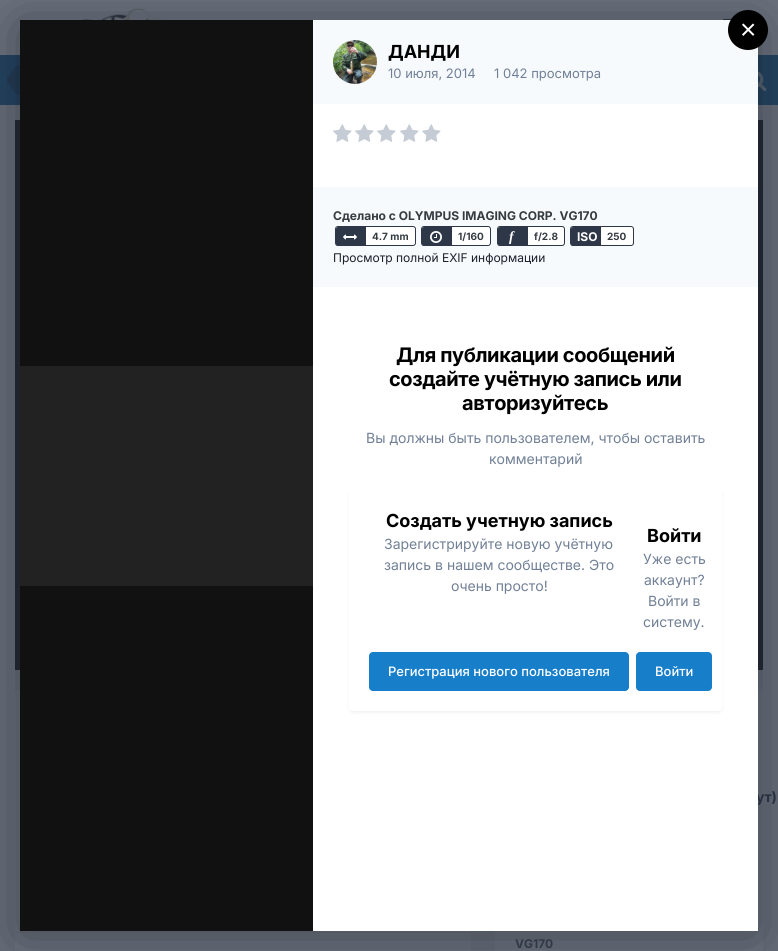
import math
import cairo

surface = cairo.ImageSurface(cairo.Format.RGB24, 778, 951)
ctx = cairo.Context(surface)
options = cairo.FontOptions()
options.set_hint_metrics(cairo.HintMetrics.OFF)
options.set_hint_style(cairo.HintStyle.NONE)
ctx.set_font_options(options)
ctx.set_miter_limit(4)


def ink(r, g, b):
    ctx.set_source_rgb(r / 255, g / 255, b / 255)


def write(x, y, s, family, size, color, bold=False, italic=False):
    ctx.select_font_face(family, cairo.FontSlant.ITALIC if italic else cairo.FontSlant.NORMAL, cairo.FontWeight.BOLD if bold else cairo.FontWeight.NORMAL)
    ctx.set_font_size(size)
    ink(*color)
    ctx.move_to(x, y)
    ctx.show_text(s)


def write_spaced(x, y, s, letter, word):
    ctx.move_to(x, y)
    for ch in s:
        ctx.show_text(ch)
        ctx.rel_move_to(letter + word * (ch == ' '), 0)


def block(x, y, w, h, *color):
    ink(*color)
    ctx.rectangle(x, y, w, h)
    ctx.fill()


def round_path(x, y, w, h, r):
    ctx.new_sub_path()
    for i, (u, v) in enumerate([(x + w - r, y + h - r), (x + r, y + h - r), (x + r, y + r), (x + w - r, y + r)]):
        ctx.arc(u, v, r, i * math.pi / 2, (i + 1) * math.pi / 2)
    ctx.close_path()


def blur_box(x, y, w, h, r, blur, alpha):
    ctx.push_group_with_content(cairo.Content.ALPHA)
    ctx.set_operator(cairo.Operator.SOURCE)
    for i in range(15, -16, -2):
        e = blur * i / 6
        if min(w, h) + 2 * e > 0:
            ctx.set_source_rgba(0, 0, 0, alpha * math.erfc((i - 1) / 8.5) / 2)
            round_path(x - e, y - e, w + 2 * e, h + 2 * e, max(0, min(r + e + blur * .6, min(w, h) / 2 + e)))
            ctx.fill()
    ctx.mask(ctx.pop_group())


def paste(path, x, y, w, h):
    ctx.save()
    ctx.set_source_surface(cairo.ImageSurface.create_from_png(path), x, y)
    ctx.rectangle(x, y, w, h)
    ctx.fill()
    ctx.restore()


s1 = dict(family="Liberation Sans", size=28, color=(255, 255, 255))
s2 = dict(family="Inter", size=14, color=(39, 48, 64), bold=True)
s3 = dict(family="Inter", size=18, color=(0, 0, 0), bold=True)
s4 = dict(family="Inter", size=13, color=(113, 128, 150))
s5 = dict(family="Inter", size=12, color=(53, 60, 65), bold=True)
s6 = dict(family="Inter", size=10, color=(53, 60, 65), bold=True)
s7 = dict(family="Liberation Serif", size=14, color=(255, 255, 255), bold=True, italic=True)
s8 = dict(family="Inter", size=12, color=(255, 255, 255), bold=True)
s9 = dict(family="Inter", size=12, color=(26, 32, 44))
s10 = dict(family="Inter", size=14, color=(113, 128, 150))
s11 = dict(family="Inter Medium", size=13, color=(255, 255, 255))
s12 = dict(family="Inter", size=12, color=(47, 57, 70), bold=True)

ink(103, 111, 124)
ctx.paint()
block(0, 0, 778, 55, 108, 115, 127)
paste("pic1.png", 64, 8, 137, 12)
paste("pic2.png", 723, 18, 9, 2)
block(0, 55, 778, 50, 37, 69, 99)
ink(36, 61, 87)
ctx.new_path()
ctx.move_to(20, 80)
ctx.line_to(20, 95)
ctx.curve_to(15.5, 95, 13.5, 90.5, 11, 87)
ctx.curve_to(9.5, 85, 7, 83, 7, 80)
ctx.close_path()
ctx.move_to(20, 80)
ctx.line_to(7, 80)
ctx.curve_to(7, 77, 9.5, 75, 11, 73)
ctx.curve_to(13.5, 69.5, 15.5, 65, 20, 65)
ctx.close_path()
ctx.fill()
paste("pic3.png", 758, 71, 9, 21)
block(15, 120, 748, 550, 37, 44, 56)
ink(108, 115, 127)
round_path(15, 690, 456, 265, 4)
ctx.fill()
block(15, 932, 456, 1, 102, 109, 121)
ink(108, 115, 127)
round_path(495, 690, 268, 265, 4)
ctx.fill()
ink(0, 0, 0)
blur_box(20, 25, 738, 911, 0, 27.5, 0.4)
block(313, 20, 445, 84, 247, 250, 252)
ink(0, 0, 0)
ctx.arc(748, 30, 20, 0, 2 * math.pi)
ctx.fill()
write(740, 39, "×", **s1)
block(20, 20, 293, 911, 17, 17, 17)
block(20, 366, 293, 220, 34, 34, 34)
write(756, 802, "ут)", **s2)
block(313, 104, 445, 827, 255, 255, 255)
ctx.new_path()
ctx.arc(355, 62, 22, 0, 2 * math.pi)
ctx.fill()
paste("pic4.png", 333, 40, 44, 44)
write(388, 58, "ДАНДИ", **s3)
write(388, 78, "10 июля, 2014", **s4)
write(494, 78, "1 042 просмотра", **s4)
paste("pic5.png", 333, 124, 19, 18)
paste("pic5.png", 355, 124, 19, 18)
paste("pic5.png", 377, 124, 19, 18)
paste("pic5.png", 400, 124, 19, 18)
paste("pic5.png", 422, 124, 19, 18)
block(313, 187, 445, 100, 247, 250, 252)
write(333, 220, "Сделано с OLYMPUS IMAGING CORP. VG170", **s5)
ink(255, 255, 255)
round_path(335.5, 226.5, 80, 19, 2.5)
ctx.fill_preserve()
ink(45, 55, 72)
ctx.set_line_width(1)
ctx.stroke()
ctx.new_path()
ctx.move_to(338, 227)
ctx.line_to(366, 227)
ctx.line_to(366, 246)
ctx.line_to(338, 246)
ctx.curve_to(337, 246, 336, 245, 336, 244)
ctx.line_to(336, 229)
ctx.curve_to(336, 228, 337, 227, 338, 227)
ctx.close_path()
ctx.fill()
paste("pic6.png", 343, 234, 14, 6)
write(372, 240, "4.7 mm", **s6)
ink(255, 255, 255)
round_path(421.5, 226.5, 69, 19, 2.5)
ctx.fill_preserve()
ink(45, 55, 72)
ctx.stroke()
ctx.new_path()
ctx.move_to(424, 227)
ctx.line_to(452, 227)
ctx.line_to(452, 246)
ctx.line_to(424, 246)
ctx.curve_to(423, 246, 422, 245, 422, 244)
ctx.line_to(422, 229)
ctx.curve_to(422, 228, 423, 227, 424, 227)
ctx.close_path()
ctx.fill()
paste("pic7.png", 430, 231, 12, 12)
write(458, 240, "1/160", **s6)
ink(255, 255, 255)
round_path(497.5, 226.5, 67, 19, 2.5)
ctx.fill_preserve()
ink(45, 55, 72)
ctx.stroke()
ctx.new_path()
ctx.move_to(500, 227)
ctx.line_to(528, 227)
ctx.line_to(528, 246)
ctx.line_to(500, 246)
ctx.curve_to(499, 246, 498, 245, 498, 244)
ctx.line_to(498, 229)
ctx.curve_to(498, 228, 499, 227, 500, 227)
ctx.close_path()
ctx.fill()
write(509, 241, "f", **s7)
write(534, 240, "f/2.8", **s6)
ink(255, 255, 255)
round_path(570.5, 226.5, 63, 19, 2.5)
ctx.fill_preserve()
ink(45, 55, 72)
ctx.stroke()
ctx.new_path()
ctx.move_to(573, 227)
ctx.line_to(601, 227)
ctx.line_to(601, 246)
ctx.line_to(573, 246)
ctx.curve_to(572, 246, 571, 245, 571, 244)
ctx.line_to(571, 229)
ctx.curve_to(571, 228, 572, 227, 573, 227)
ctx.close_path()
ctx.fill()
write(577, 241, "ISO", **s8)
write(607, 240, "250", **s6)
write(333, 262, "Просмотр полной EXIF информации", **s9)
ctx.select_font_face("Inter", cairo.FontSlant.NORMAL, cairo.FontWeight.BOLD)
ctx.set_font_size(20)
ink(0, 0, 0)
write_spaced(396, 362, "Для публикации сообщений", -0.4, 0)
write_spaced(389, 386, "создайте учётную запись или", -0.4, 0)
write_spaced(462, 410, "авторизуйтесь", -0.4, 0)
write(366, 443, "Вы должны быть пользователем, чтобы оставить", **s10)
write(489, 464, "комментарий", **s10)
ink(45, 55, 72)
blur_box(350, 492, 371, 220, 3, 2, 0.1)
ink(255, 255, 255)
round_path(349, 489, 373, 222, 4)
ctx.fill()
write(386, 527, "Создать учетную запись", **s3)
write(384, 549, "Зарегистрируйте новую учётную", **s10)
write(384, 570, "запись в нашем сообществе. Это", **s10)
write(451, 591, "очень просто!", **s10)
ink(23, 126, 201)
round_path(369, 652, 260, 39, 4)
ctx.fill()
write(388, 676, "Регистрация нового пользователя", **s11)
write(647, 542, "Войти", **s3)
write(643, 564, "Уже есть", **s10)
write(644, 585, "аккаунт?", **s10)
write(648, 606, "Войти в", **s10)
write(643, 627, "систему.", **s10)
ink(23, 126, 201)
round_path(636, 652, 76, 39, 4)
ctx.fill()
write(655, 676, "Войти", **s11)
write(515, 948, "VG170", **s12)
surface.write_to_png("screenshot.png")
